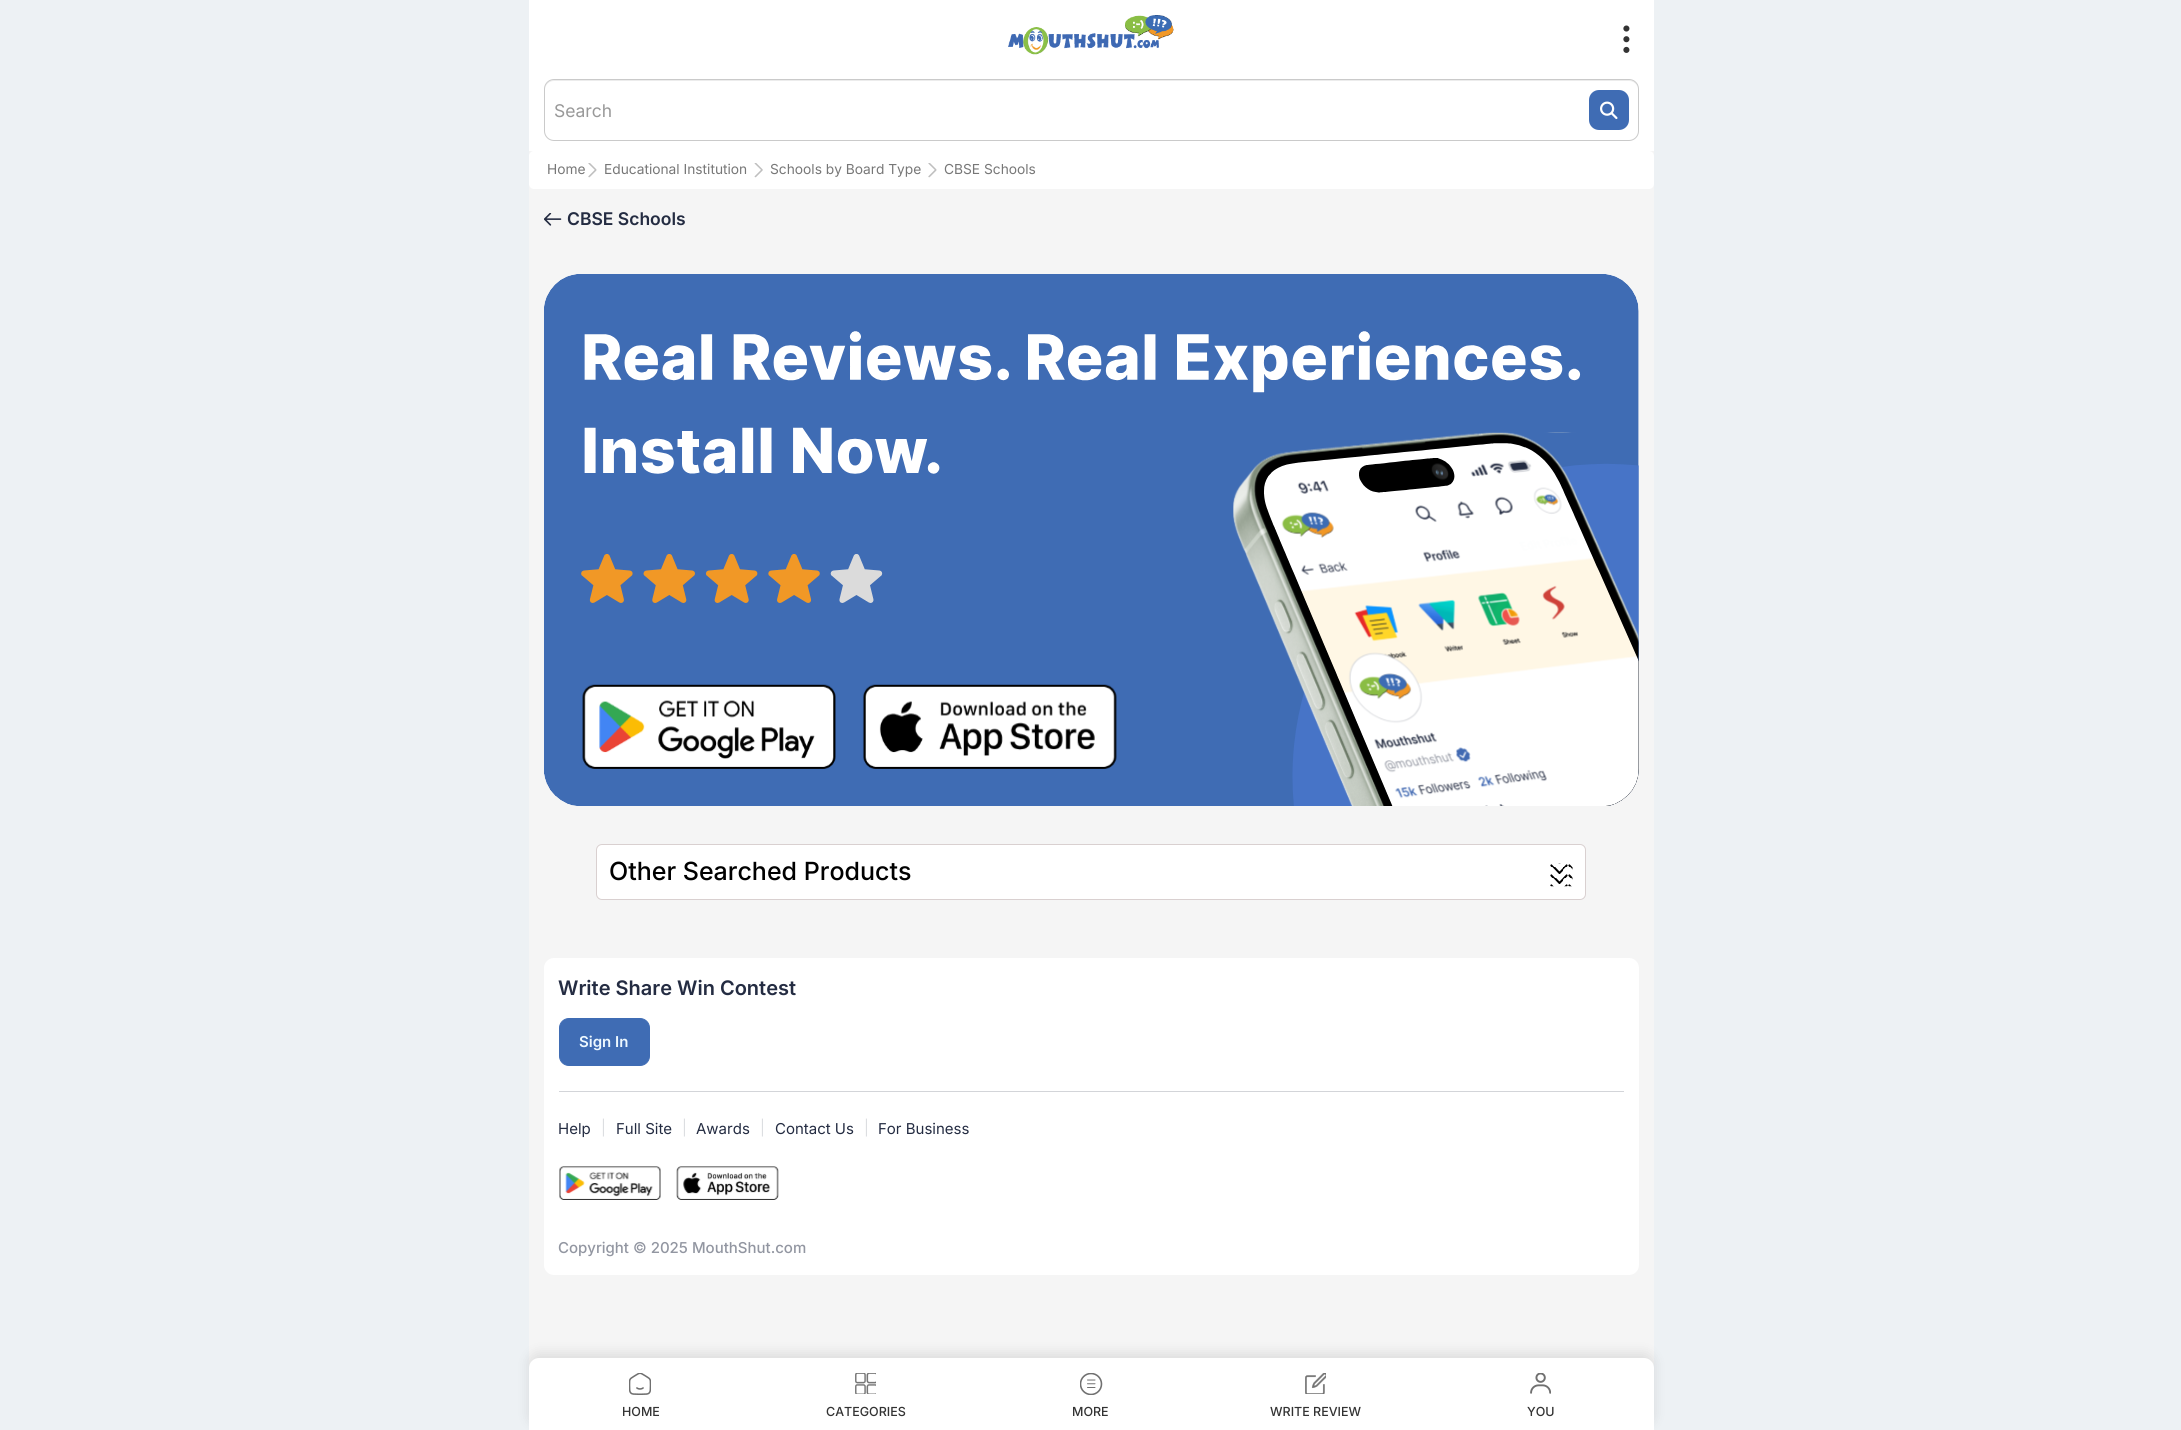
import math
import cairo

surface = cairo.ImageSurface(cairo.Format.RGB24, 2181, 1430)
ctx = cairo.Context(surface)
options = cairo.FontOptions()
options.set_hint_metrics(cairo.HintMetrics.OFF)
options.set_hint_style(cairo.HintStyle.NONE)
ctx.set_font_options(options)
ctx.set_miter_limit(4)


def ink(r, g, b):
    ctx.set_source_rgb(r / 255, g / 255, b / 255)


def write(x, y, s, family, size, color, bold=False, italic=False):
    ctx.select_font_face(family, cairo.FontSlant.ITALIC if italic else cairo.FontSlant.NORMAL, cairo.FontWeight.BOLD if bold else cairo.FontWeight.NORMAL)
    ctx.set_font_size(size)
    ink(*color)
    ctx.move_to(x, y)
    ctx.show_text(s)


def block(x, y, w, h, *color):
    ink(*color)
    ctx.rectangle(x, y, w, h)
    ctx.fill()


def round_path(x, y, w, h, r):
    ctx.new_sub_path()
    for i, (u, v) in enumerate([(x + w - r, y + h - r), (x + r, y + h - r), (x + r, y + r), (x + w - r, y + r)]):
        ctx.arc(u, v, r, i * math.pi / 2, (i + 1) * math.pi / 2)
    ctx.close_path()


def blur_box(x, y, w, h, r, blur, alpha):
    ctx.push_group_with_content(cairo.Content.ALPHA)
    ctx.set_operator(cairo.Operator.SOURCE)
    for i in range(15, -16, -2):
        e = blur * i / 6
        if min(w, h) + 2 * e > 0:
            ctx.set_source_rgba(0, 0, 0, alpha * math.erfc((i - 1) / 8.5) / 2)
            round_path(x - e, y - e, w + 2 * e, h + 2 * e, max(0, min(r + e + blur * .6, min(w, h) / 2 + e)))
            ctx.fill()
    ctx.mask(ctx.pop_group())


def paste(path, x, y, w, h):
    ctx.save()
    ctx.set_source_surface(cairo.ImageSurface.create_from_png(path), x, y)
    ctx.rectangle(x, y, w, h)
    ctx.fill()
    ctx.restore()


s1 = dict(family="Inter", size=17.5, color=(153, 153, 153))
s2 = dict(family="Inter", size=13.75, color=(119, 119, 119))
s3 = dict(family="Inter SemiBold", size=17.5, color=(36, 44, 66))
s4 = dict(family="Inter Medium", size=25, color=(0, 0, 0))
s5 = dict(family="Inter SemiBold", size=20, color=(36, 44, 66))
s6 = dict(family="Inter SemiBold", size=15, color=(237, 248, 255))
s7 = dict(family="Inter", size=15, color=(36, 44, 66))
s8 = dict(family="Inter Light", size=15, color=(211, 213, 217))
s9 = dict(family="Inter Medium", size=15, color=(146, 150, 161))
s10 = dict(family="Inter Medium", size=12.5, color=(51, 51, 51))

ink(237, 241, 244)
ctx.paint()
block(529, 0, 1125, 151, 255, 255, 255)
paste("pic1.png", 1008, 15, 166, 40)
paste("pic2.png", 1623, 25, 7, 28)
ink(236, 236, 236)
ctx.new_path()
ctx.move_to(554, 81)
ctx.line_to(1629, 81)
ctx.curve_to(1634, 81, 1638, 85, 1638, 90)
ctx.curve_to(1638, 85, 1635, 80, 1629, 80)
ctx.line_to(554, 80)
ctx.curve_to(548, 80, 545, 85, 545, 90)
ctx.curve_to(545, 85, 549, 81, 554, 81)
ctx.close_path()
ctx.fill()
round_path(544.5, 79.5, 1094, 61, 9.5)
ink(202, 202, 202)
ctx.set_line_width(1)
ctx.stroke()
write(554, 117, "Search", **s1)
paste("pic3.png", 1589, 90, 40, 40)
block(529, 151, 1125, 1214, 245, 245, 245)
ink(255, 255, 255)
round_path(529, 151, 1125, 38, 5)
ctx.fill()
write(547, 174, "Home", **s2)
paste("pic4.png", 588, 163, 9, 15)
write(604, 174, "Educational Institution", **s2)
paste("pic5.png", 754, 163, 9, 15)
write(770, 174, "Schools by Board Type", **s2)
paste("pic4.png", 928, 163, 9, 15)
write(944, 174, "CBSE Schools", **s2)
paste("pic6.png", 544, 213, 18, 13)
write(567, 225, "CBSE Schools", **s3)
paste("pic7.png", 544, 274, 1095, 532)
ink(255, 255, 255)
round_path(596.5, 844.5, 989, 55, 5.5)
ctx.fill_preserve()
ink(217, 208, 208)
ctx.stroke()
write(609, 880, "Other Searched Products", **s4)
paste("pic8.png", 1550, 863, 23, 24)
ink(255, 255, 255)
round_path(544, 958, 1095, 317, 10)
ctx.fill()
write(558, 995, "Write Share Win Contest", **s5)
ink(63, 108, 180)
round_path(559.5, 1018.5, 90, 47, 9.5)
ctx.fill_preserve()
ctx.stroke()
write(579, 1047, "Sign In", **s6)
block(559, 1091, 1065, 1, 211, 213, 217)
write(558, 1134, "Help", **s7)
write(601, 1133, "|", **s8)
write(616, 1134, "Full Site", **s7)
write(682, 1133, "|", **s8)
write(696, 1134, "Awards", **s7)
write(760, 1133, "|", **s8)
write(775, 1134, "Contact Us", **s7)
write(864, 1133, "|", **s8)
write(878, 1134, "For Business", **s7)
paste("pic9.png", 559, 1166, 102, 34)
paste("pic10.png", 676, 1166, 103, 34)
write(558, 1253, "Copyright © 2025 MouthShut.com", **s9)
ink(0, 0, 0)
blur_box(529, 1353, 1125, 72, 10, 6, 0.1)
ink(255, 255, 255)
ctx.new_path()
ctx.move_to(539, 1358)
ctx.line_to(1644, 1358)
ctx.curve_to(1649.5, 1358, 1654, 1362.5, 1654, 1368)
ctx.line_to(1654, 1430)
ctx.line_to(529, 1430)
ctx.line_to(529, 1368)
ctx.curve_to(529, 1362.5, 533.5, 1358, 539, 1358)
ctx.close_path()
ctx.fill()
paste("pic11.png", 629, 1373, 22, 22)
write(622, 1416, "HOME", **s10)
paste("pic12.png", 855, 1373, 21, 21)
write(826, 1416, "CATEGORIES", **s10)
paste("pic13.png", 1080, 1373, 23, 22)
write(1072, 1416, "MORE", **s10)
paste("pic14.png", 1305, 1373, 21, 21)
write(1270, 1416, "WRITE REVIEW", **s10)
paste("pic15.png", 1530, 1373, 21, 21)
write(1527, 1416, "YOU", **s10)
surface.write_to_png("screenshot.png")
